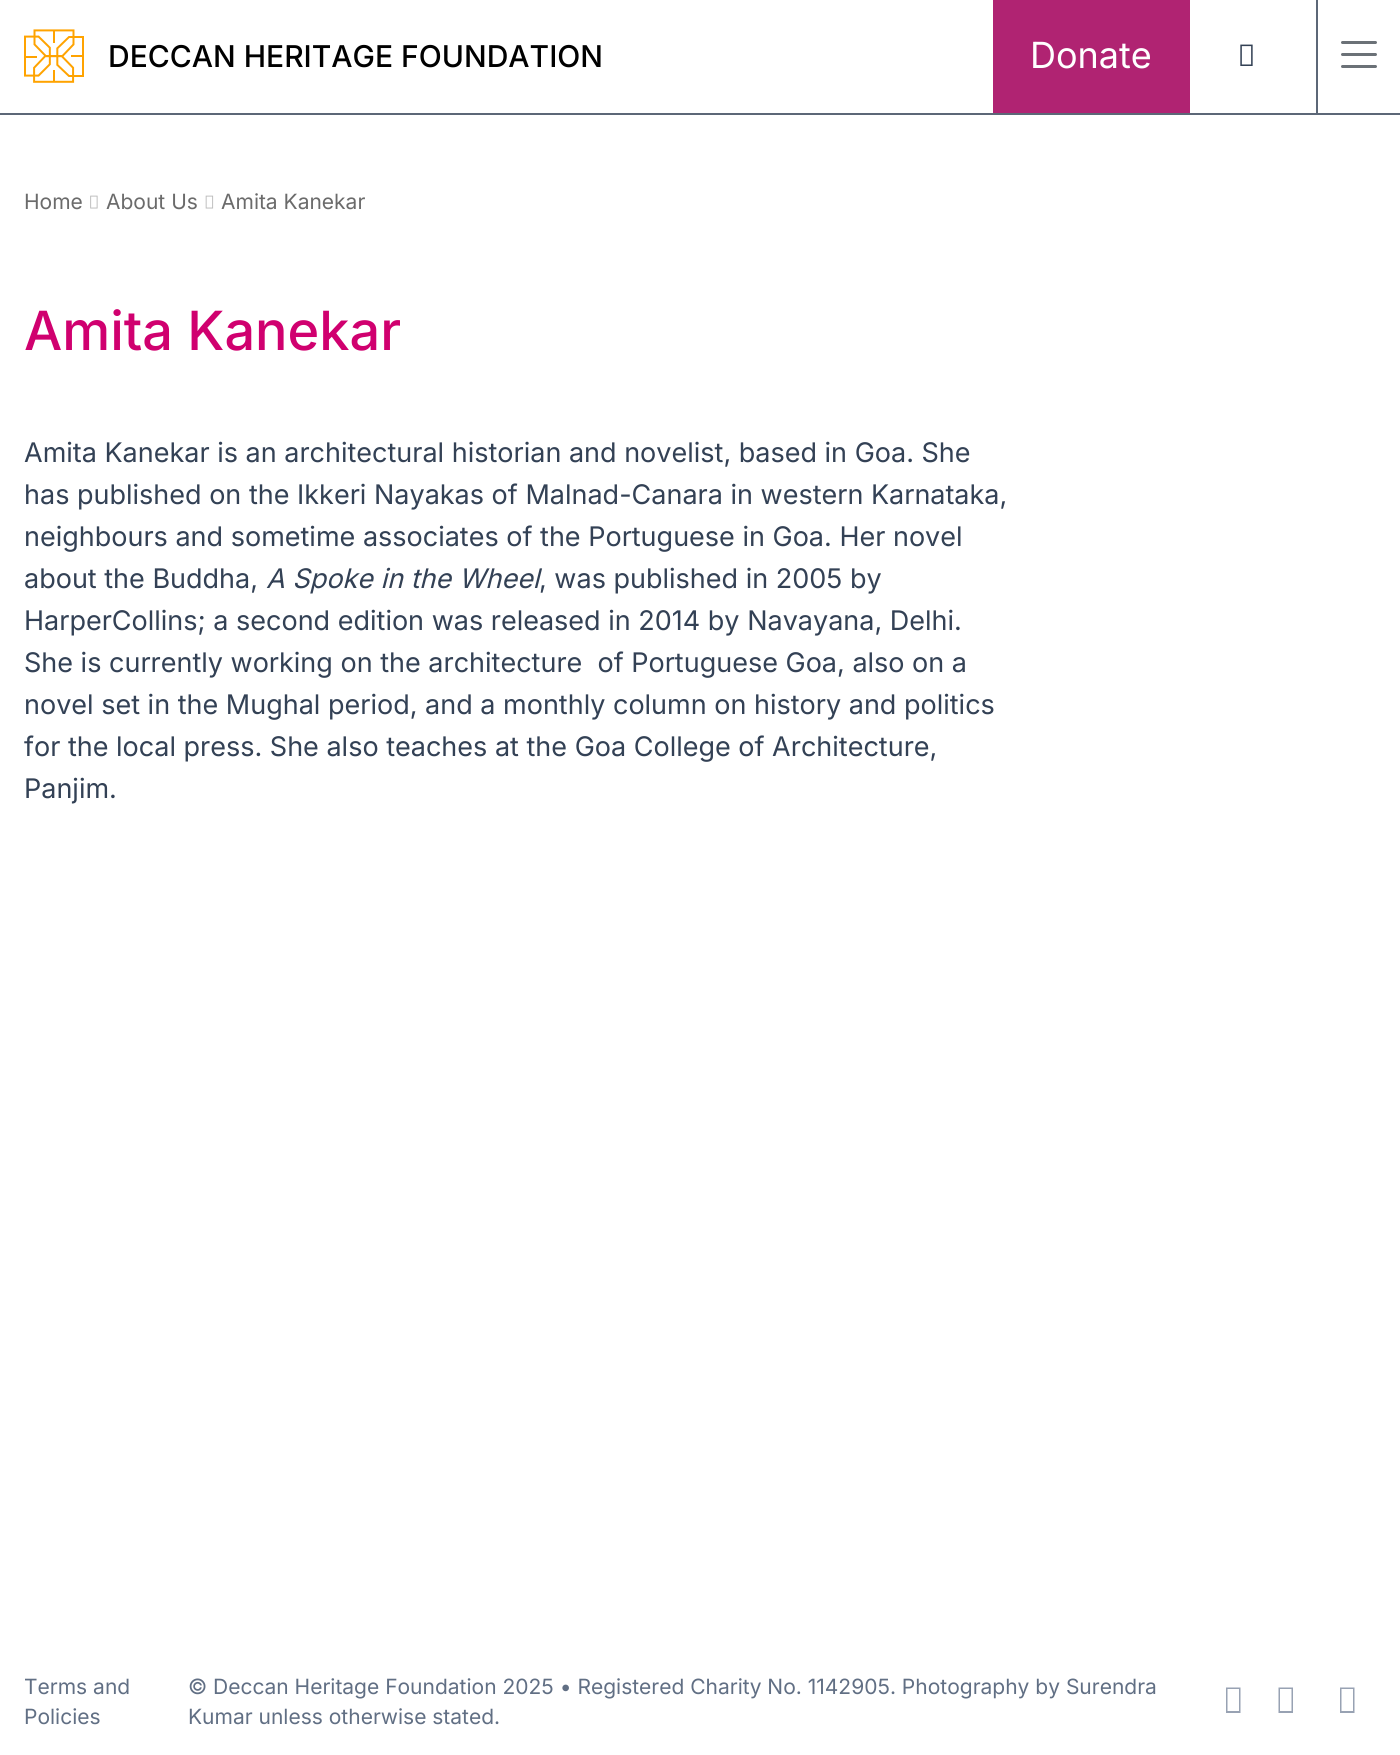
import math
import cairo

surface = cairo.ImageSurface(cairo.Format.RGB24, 1400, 1755)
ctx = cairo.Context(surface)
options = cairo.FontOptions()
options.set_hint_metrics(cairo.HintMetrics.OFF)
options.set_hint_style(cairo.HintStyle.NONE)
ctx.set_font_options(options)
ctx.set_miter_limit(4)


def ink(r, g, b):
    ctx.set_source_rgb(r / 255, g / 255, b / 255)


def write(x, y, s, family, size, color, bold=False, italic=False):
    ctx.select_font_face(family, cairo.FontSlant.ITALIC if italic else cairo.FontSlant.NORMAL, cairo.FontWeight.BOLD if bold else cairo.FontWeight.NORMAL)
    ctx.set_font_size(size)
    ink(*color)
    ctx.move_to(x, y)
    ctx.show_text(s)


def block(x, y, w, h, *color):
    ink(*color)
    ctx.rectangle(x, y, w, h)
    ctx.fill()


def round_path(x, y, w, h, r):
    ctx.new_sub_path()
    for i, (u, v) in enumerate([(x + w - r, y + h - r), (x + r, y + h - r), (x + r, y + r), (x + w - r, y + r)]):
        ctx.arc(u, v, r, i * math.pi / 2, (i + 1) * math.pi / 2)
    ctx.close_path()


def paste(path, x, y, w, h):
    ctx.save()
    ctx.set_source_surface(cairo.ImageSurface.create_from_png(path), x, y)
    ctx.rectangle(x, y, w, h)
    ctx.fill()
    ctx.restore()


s1 = dict(family="Inter Medium", size=30, color=(0, 0, 0))
s2 = dict(family="Inter", size=36, color=(255, 255, 255))
s3 = dict(family="Inter", size=21, color=(107, 107, 107))
s4 = dict(family="Inter Medium", size=54, color=(208, 0, 111))
s5 = dict(family="Inter", size=27, color=(51, 65, 85))
s6 = dict(family="Inter", size=27, color=(51, 65, 85), italic=True)
s7 = dict(family="Inter", size=21, color=(97, 111, 132))

ink(255, 255, 255)
ctx.paint()
block(0, 113, 1400, 2, 92, 103, 119)
paste("pic1.png", 24, 29, 60, 54)
write(108, 67, "DECCAN HERITAGE FOUNDATION", **s1)
block(993, 0, 197, 113, 176, 35, 114)
write(1030, 68, "Donate", **s2)
block(1316, 0, 2, 113, 92, 103, 119)
paste("pic2.png", 1240, 44, 13, 22)
ink(107, 113, 119)
round_path(1341, 53, 36, 3, 1.5)
ctx.fill()
round_path(1341, 41, 36, 3, 1.5)
ctx.fill()
round_path(1341, 65, 36, 3, 1.5)
ctx.fill()
write(24, 209, "Home", **s3)
paste("pic3.png", 90, 195, 8, 14)
write(106, 209, "About Us", **s3)
paste("pic4.png", 205, 195, 9, 14)
write(221, 209, "Amita Kanekar", **s3)
write(24, 350, "Amita Kanekar", **s4)
write(24, 462, "Amita Kanekar is an architectural historian and novelist, based in Goa. She", **s5)
write(24, 504, "has published on the Ikkeri Nayakas of Malnad-Canara in western Karnataka,", **s5)
write(24, 546, "neighbours and sometime associates of the Portuguese in Goa. Her novel", **s5)
write(24, 588, "about the Buddha,", **s5)
write(266, 588, "A Spoke in the Wheel", **s6)
write(539, 588, ", was published in 2005 by", **s5)
write(24, 630, "HarperCollins; a second edition was released in 2014 by Navayana, Delhi.", **s5)
write(24, 672, "She is currently working on the architecture  of Portuguese Goa, also on a", **s5)
write(24, 714, "novel set in the Mughal period, and a monthly column on history and politics", **s5)
write(24, 756, "for the local press. She also teaches at the Goa College of Architecture,", **s5)
write(24, 798, "Panjim.", **s5)
write(24, 1694, "Terms and", **s7)
write(24, 1724, "Policies", **s7)
write(188, 1694, "© Deccan Heritage Foundation 2025 • Registered Charity No. 1142905. Photography by Surendra", **s7)
write(188, 1724, "Kumar unless otherwise stated.", **s7)
ink(152, 162, 179)
ctx.new_path()
ctx.move_to(1226, 1713)
ctx.line_to(1226, 1687.5)
ctx.line_to(1240.5, 1687.5)
ctx.line_to(1240.5, 1713)
ctx.close_path()
ctx.move_to(1227.5, 1711)
ctx.line_to(1239, 1711)
ctx.line_to(1239, 1689)
ctx.line_to(1227.5, 1689)
ctx.close_path()
ctx.fill()
ctx.new_path()
ctx.move_to(1278.5, 1713)
ctx.line_to(1278.5, 1687.5)
ctx.line_to(1293, 1687.5)
ctx.line_to(1293, 1713)
ctx.close_path()
ctx.move_to(1280, 1711)
ctx.line_to(1291.5, 1711)
ctx.line_to(1291.5, 1689)
ctx.line_to(1280, 1689)
ctx.close_path()
ctx.fill()
ctx.new_path()
ctx.move_to(1340, 1713)
ctx.line_to(1340, 1687.5)
ctx.line_to(1354.5, 1687.5)
ctx.line_to(1354.5, 1713)
ctx.close_path()
ctx.move_to(1341.5, 1711)
ctx.line_to(1353, 1711)
ctx.line_to(1353, 1689)
ctx.line_to(1341.5, 1689)
ctx.close_path()
ctx.fill()
surface.write_to_png("screenshot.png")
